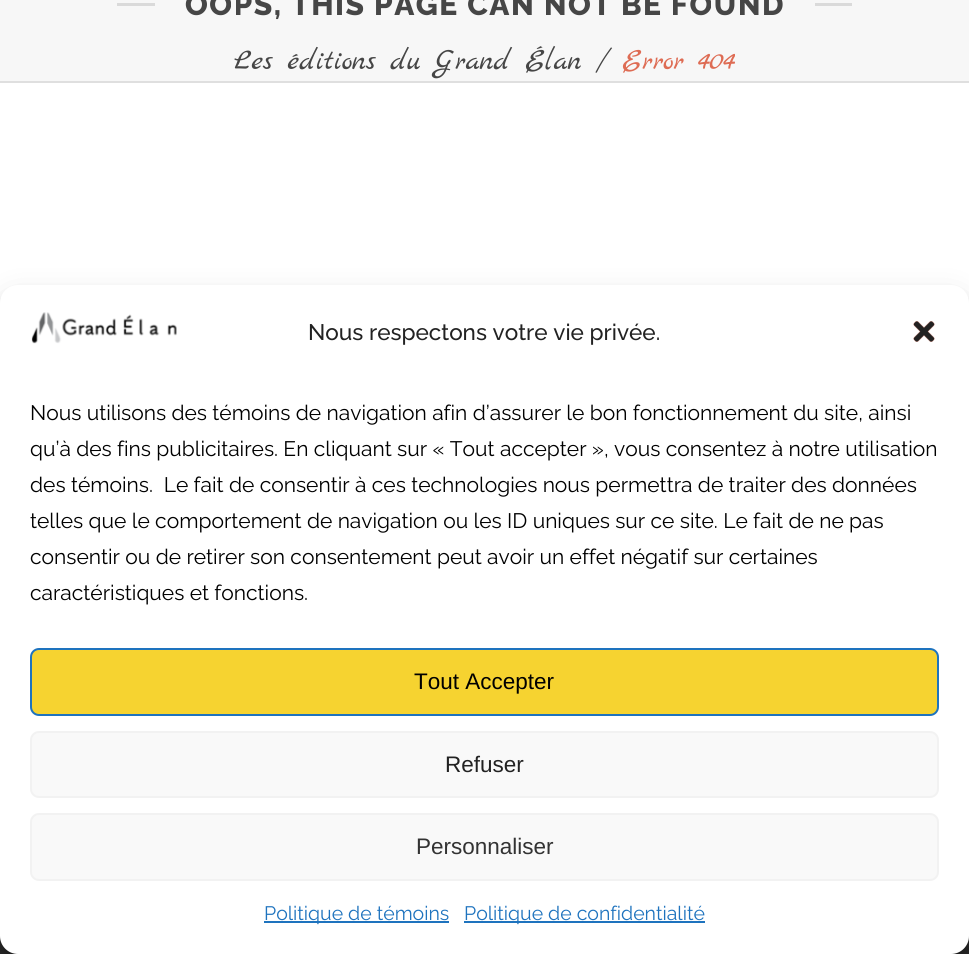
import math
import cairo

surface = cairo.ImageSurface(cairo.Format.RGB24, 969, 954)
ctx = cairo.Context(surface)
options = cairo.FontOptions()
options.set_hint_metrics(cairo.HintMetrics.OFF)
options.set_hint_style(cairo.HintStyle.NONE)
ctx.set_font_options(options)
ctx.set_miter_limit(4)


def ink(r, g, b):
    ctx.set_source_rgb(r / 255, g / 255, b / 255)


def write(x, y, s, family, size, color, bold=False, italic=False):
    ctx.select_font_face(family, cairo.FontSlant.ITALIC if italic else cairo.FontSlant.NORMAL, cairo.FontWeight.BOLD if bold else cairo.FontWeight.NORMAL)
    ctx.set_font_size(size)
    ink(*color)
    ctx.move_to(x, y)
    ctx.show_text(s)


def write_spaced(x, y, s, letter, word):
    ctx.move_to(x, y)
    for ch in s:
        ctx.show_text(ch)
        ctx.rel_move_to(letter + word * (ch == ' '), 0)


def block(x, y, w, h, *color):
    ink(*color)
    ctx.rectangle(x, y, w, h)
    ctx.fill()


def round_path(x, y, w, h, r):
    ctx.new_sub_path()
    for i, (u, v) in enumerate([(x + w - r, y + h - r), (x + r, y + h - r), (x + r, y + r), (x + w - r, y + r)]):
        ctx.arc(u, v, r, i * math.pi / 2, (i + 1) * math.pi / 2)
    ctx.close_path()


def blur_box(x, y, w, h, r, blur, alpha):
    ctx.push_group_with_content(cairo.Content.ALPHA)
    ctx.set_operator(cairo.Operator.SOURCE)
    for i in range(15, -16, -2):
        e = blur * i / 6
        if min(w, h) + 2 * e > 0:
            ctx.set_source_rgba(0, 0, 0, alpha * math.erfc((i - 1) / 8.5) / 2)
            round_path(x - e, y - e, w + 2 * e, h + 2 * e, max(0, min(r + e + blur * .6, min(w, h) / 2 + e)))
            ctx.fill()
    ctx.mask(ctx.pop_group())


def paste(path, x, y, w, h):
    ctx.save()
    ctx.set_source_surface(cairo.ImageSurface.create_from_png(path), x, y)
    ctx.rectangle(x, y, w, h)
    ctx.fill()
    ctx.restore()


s1 = dict(family="Marck Script", size=30, color=(70, 70, 70))
s2 = dict(family="Marck Script", size=30, color=(222, 108, 84))
s3 = dict(family="Raleway Medium", size=22.5, color=(34, 34, 34))
s4 = dict(family="Raleway", size=21, color=(0, 0, 0))
s5 = dict(family="Liberation Sans", size=22.5, color=(0, 0, 0))
s6 = dict(family="Liberation Sans", size=22.5, color=(34, 34, 34))
s7 = dict(family="Liberation Sans", size=22.5, color=(51, 51, 51))
s8 = dict(family="Raleway", size=19.5, color=(30, 115, 190))

ink(255, 255, 255)
ctx.paint()
block(0, 0, 969, 81, 247, 247, 247)
block(0, 81, 969, 2, 223, 223, 223)
block(117, 3, 38, 3, 218, 218, 218)
ctx.select_font_face("Raleway ExtraBold")
ctx.set_font_size(30)
ink(70, 70, 70)
write_spaced(185, 15, "OOPS, THIS PAGE CAN NOT BE FOUND", 1.5, 0)
block(815, 3, 37, 3, 218, 218, 218)
write(234, 69, "Les éditions du Grand Élan /", **s1)
write(622, 69, "Error 404", **s2)
block(0, 936, 969, 18, 43, 43, 43)
ink(0, 0, 0)
blur_box(0, 294, 969, 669, 18, 4.5, 0.23)
blur_box(0, 300, 969, 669, 18, 15, 0.19)
ink(255, 255, 255)
round_path(0, 285, 969, 669, 18)
ctx.fill()
paste("pic1.png", 31, 312, 146, 32)
write(308, 340, "Nous respectons votre vie privée.", **s3)
paste("pic2.png", 913, 321, 22, 21)
write(30, 420, "Nous utilisons des témoins de navigation afin d’assurer le bon fonctionnement du site, ainsi", **s4)
write(30, 456, "qu’à des fins publicitaires. En cliquant sur « Tout accepter », vous consentez à notre utilisation", **s4)
write(30, 492, "des témoins.  Le fait de consentir à ces technologies nous permettra de traiter des données", **s4)
write(30, 528, "telles que le comportement de navigation ou les ID uniques sur ce site. Le fait de ne pas", **s4)
write(30, 564, "consentir ou de retirer son consentement peut avoir un effet négatif sur certaines", **s4)
write(30, 600, "caractéristiques et fonctions.", **s4)
ink(246, 211, 48)
round_path(31, 649, 907, 66, 8)
ctx.fill_preserve()
ink(30, 115, 190)
ctx.stroke()
write(414, 689, "Tout Accepter", **s5)
ink(249, 249, 249)
round_path(31, 732, 907, 65, 8)
ctx.fill_preserve()
ink(242, 242, 242)
ctx.stroke()
write(445, 772, "Refuser", **s6)
ink(249, 249, 249)
round_path(31, 814, 907, 66, 8)
ctx.fill_preserve()
ink(242, 242, 242)
ctx.stroke()
write(416, 854, "Personnaliser", **s7)
block(264, 921, 185, 2, 30, 115, 190)
write(264, 920, "Politique de témoins", **s8)
block(464, 921, 241, 2, 30, 115, 190)
write(464, 920, "Politique de confidentialité", **s8)
surface.write_to_png("screenshot.png")
